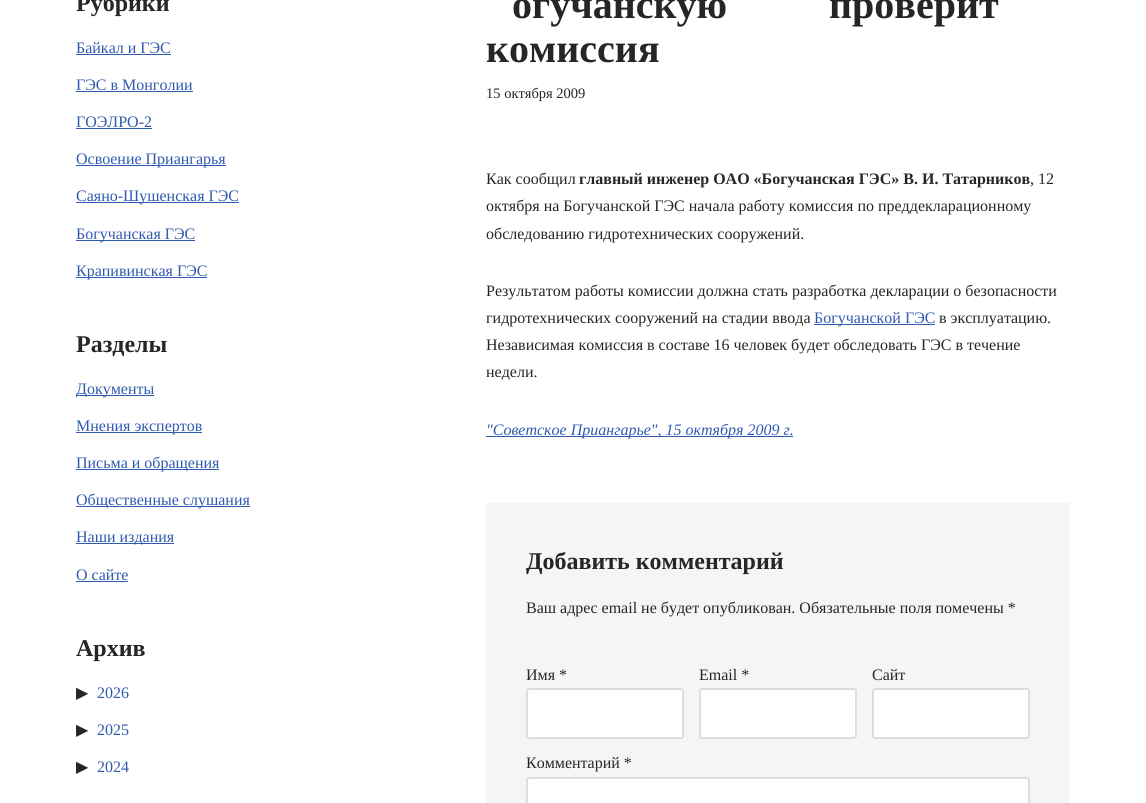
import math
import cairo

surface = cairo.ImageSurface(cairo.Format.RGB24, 1146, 803)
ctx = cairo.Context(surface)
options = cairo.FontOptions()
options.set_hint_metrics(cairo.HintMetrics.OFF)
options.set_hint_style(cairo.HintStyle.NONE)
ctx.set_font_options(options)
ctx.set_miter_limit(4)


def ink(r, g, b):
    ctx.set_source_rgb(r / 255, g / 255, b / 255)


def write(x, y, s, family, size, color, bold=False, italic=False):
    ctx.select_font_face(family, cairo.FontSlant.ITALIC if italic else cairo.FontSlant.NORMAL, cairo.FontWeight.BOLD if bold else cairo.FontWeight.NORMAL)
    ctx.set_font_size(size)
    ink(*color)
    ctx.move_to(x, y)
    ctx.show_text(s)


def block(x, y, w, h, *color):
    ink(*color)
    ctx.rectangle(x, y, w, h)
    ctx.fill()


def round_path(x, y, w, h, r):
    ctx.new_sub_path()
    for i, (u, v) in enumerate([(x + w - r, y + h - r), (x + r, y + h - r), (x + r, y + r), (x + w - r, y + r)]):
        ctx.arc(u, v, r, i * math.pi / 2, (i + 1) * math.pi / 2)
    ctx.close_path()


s1 = dict(family="Liberation Serif", size=24, color=(39, 38, 38), bold=True)
s2 = dict(family="Liberation Serif", size=16, color=(47, 90, 174))
s3 = dict(family="DejaVu Sans", size=16, color=(39, 38, 38))
s4 = dict(family="Liberation Serif", size=40, color=(39, 38, 38), bold=True)
s5 = dict(family="Liberation Serif", size=14.5, color=(39, 38, 38))
s6 = dict(family="Liberation Serif", size=16, color=(39, 38, 38))
s7 = dict(family="Liberation Serif", size=16, color=(39, 38, 38), bold=True)
s8 = dict(family="Liberation Serif", size=16, color=(47, 90, 174), italic=True)

ink(255, 255, 255)
ctx.paint()
write(76, 11, "Рубрики", **s1)
write(76, 53, "Байкал и ГЭС", **s2)
block(76, 54, 95, 1, 47, 90, 174)
write(76, 90, "ГЭС в Монголии", **s2)
block(76, 91, 117, 1, 47, 90, 174)
write(76, 127, "ГОЭЛРО-2", **s2)
block(76, 128, 76, 1, 47, 90, 174)
block(76, 165, 150, 1, 47, 90, 174)
write(76, 164, "Освоение Приангарья", **s2)
block(76, 202, 163, 1, 47, 90, 174)
write(76, 201, "Саяно-Шушенская ГЭС", **s2)
block(76, 240, 119, 1, 47, 90, 174)
write(76, 239, "Богучанская ГЭС", **s2)
block(76, 277, 131, 1, 47, 90, 174)
write(76, 276, "Крапивинская ГЭС", **s2)
write(76, 352, "Разделы", **s1)
block(76, 395, 78, 1, 47, 90, 174)
write(76, 394, "Документы", **s2)
block(76, 432, 126, 1, 47, 90, 174)
write(76, 431, "Мнения экспертов", **s2)
block(76, 469, 143, 1, 47, 90, 174)
write(76, 468, "Письма и обращения", **s2)
block(76, 506, 174, 1, 47, 90, 174)
write(76, 505, "Общественные слушания", **s2)
block(76, 543, 98, 1, 47, 90, 174)
write(76, 542, "Наши издания", **s2)
write(76, 580, "О сайте", **s2)
block(76, 581, 52, 1, 47, 90, 174)
write(76, 656, "Архив", **s1)
write(76, 698, "▶", **s3)
write(97, 698, "2026", **s2)
write(76, 735, "▶", **s3)
write(97, 735, "2025", **s2)
write(76, 772, "▶", **s3)
write(97, 772, "2024", **s2)
write(512, 18, "огучанскую", **s4)
write(829, 18, "проверит", **s4)
write(486, 62, "комиссия", **s4)
write(486, 98, "15 октября 2009", **s5)
write(486, 184, "Как сообщил", **s6)
write(579, 184, "главный инженер ОАО «Богучанская ГЭС» В. И. Татарников", **s7)
write(1030, 184, ", 12", **s6)
write(486, 211, "октября на Богучанской ГЭС начала работу комиссия по преддекларационному", **s6)
write(486, 239, "обследованию гидротехнических сооружений.", **s6)
write(486, 296, "Результатом работы комиссии должна стать разработка декларации о безопасности", **s6)
write(486, 323, "гидротехнических сооружений на стадии ввода", **s6)
block(814, 324, 121, 1, 47, 90, 174)
write(814, 323, "Богучанской ГЭС", **s2)
write(939, 323, "в эксплуатацию.", **s6)
write(486, 350, "Независимая комиссия в составе 16 человек будет обследовать ГЭС в течение", **s6)
write(486, 377, "недели.", **s6)
block(486, 436, 307, 1, 47, 90, 174)
write(486, 435, "\"Советское Приангарье\", 15 октября 2009 г.", **s8)
block(486, 503, 584, 300, 244, 245, 247)
write(526, 569, "Добавить комментарий", **s1)
write(526, 613, "Ваш адрес email не будет опубликован. Обязательные поля помечены *", **s6)
write(526, 680, "Имя *", **s6)
ink(255, 255, 255)
round_path(527, 689, 156, 49, 2)
ctx.fill_preserve()
ink(221, 221, 221)
ctx.stroke()
write(699, 680, "Email *", **s6)
ink(255, 255, 255)
round_path(700, 689, 156, 49, 2)
ctx.fill_preserve()
ink(221, 221, 221)
ctx.stroke()
write(872, 680, "Сайт", **s6)
ink(255, 255, 255)
round_path(873, 689, 156, 49, 2)
ctx.fill_preserve()
ink(221, 221, 221)
ctx.stroke()
write(526, 768, "Комментарий *", **s6)
ink(255, 255, 255)
round_path(527, 778, 502, 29, 2)
ctx.fill_preserve()
ink(221, 221, 221)
ctx.stroke()
surface.write_to_png("screenshot.png")
